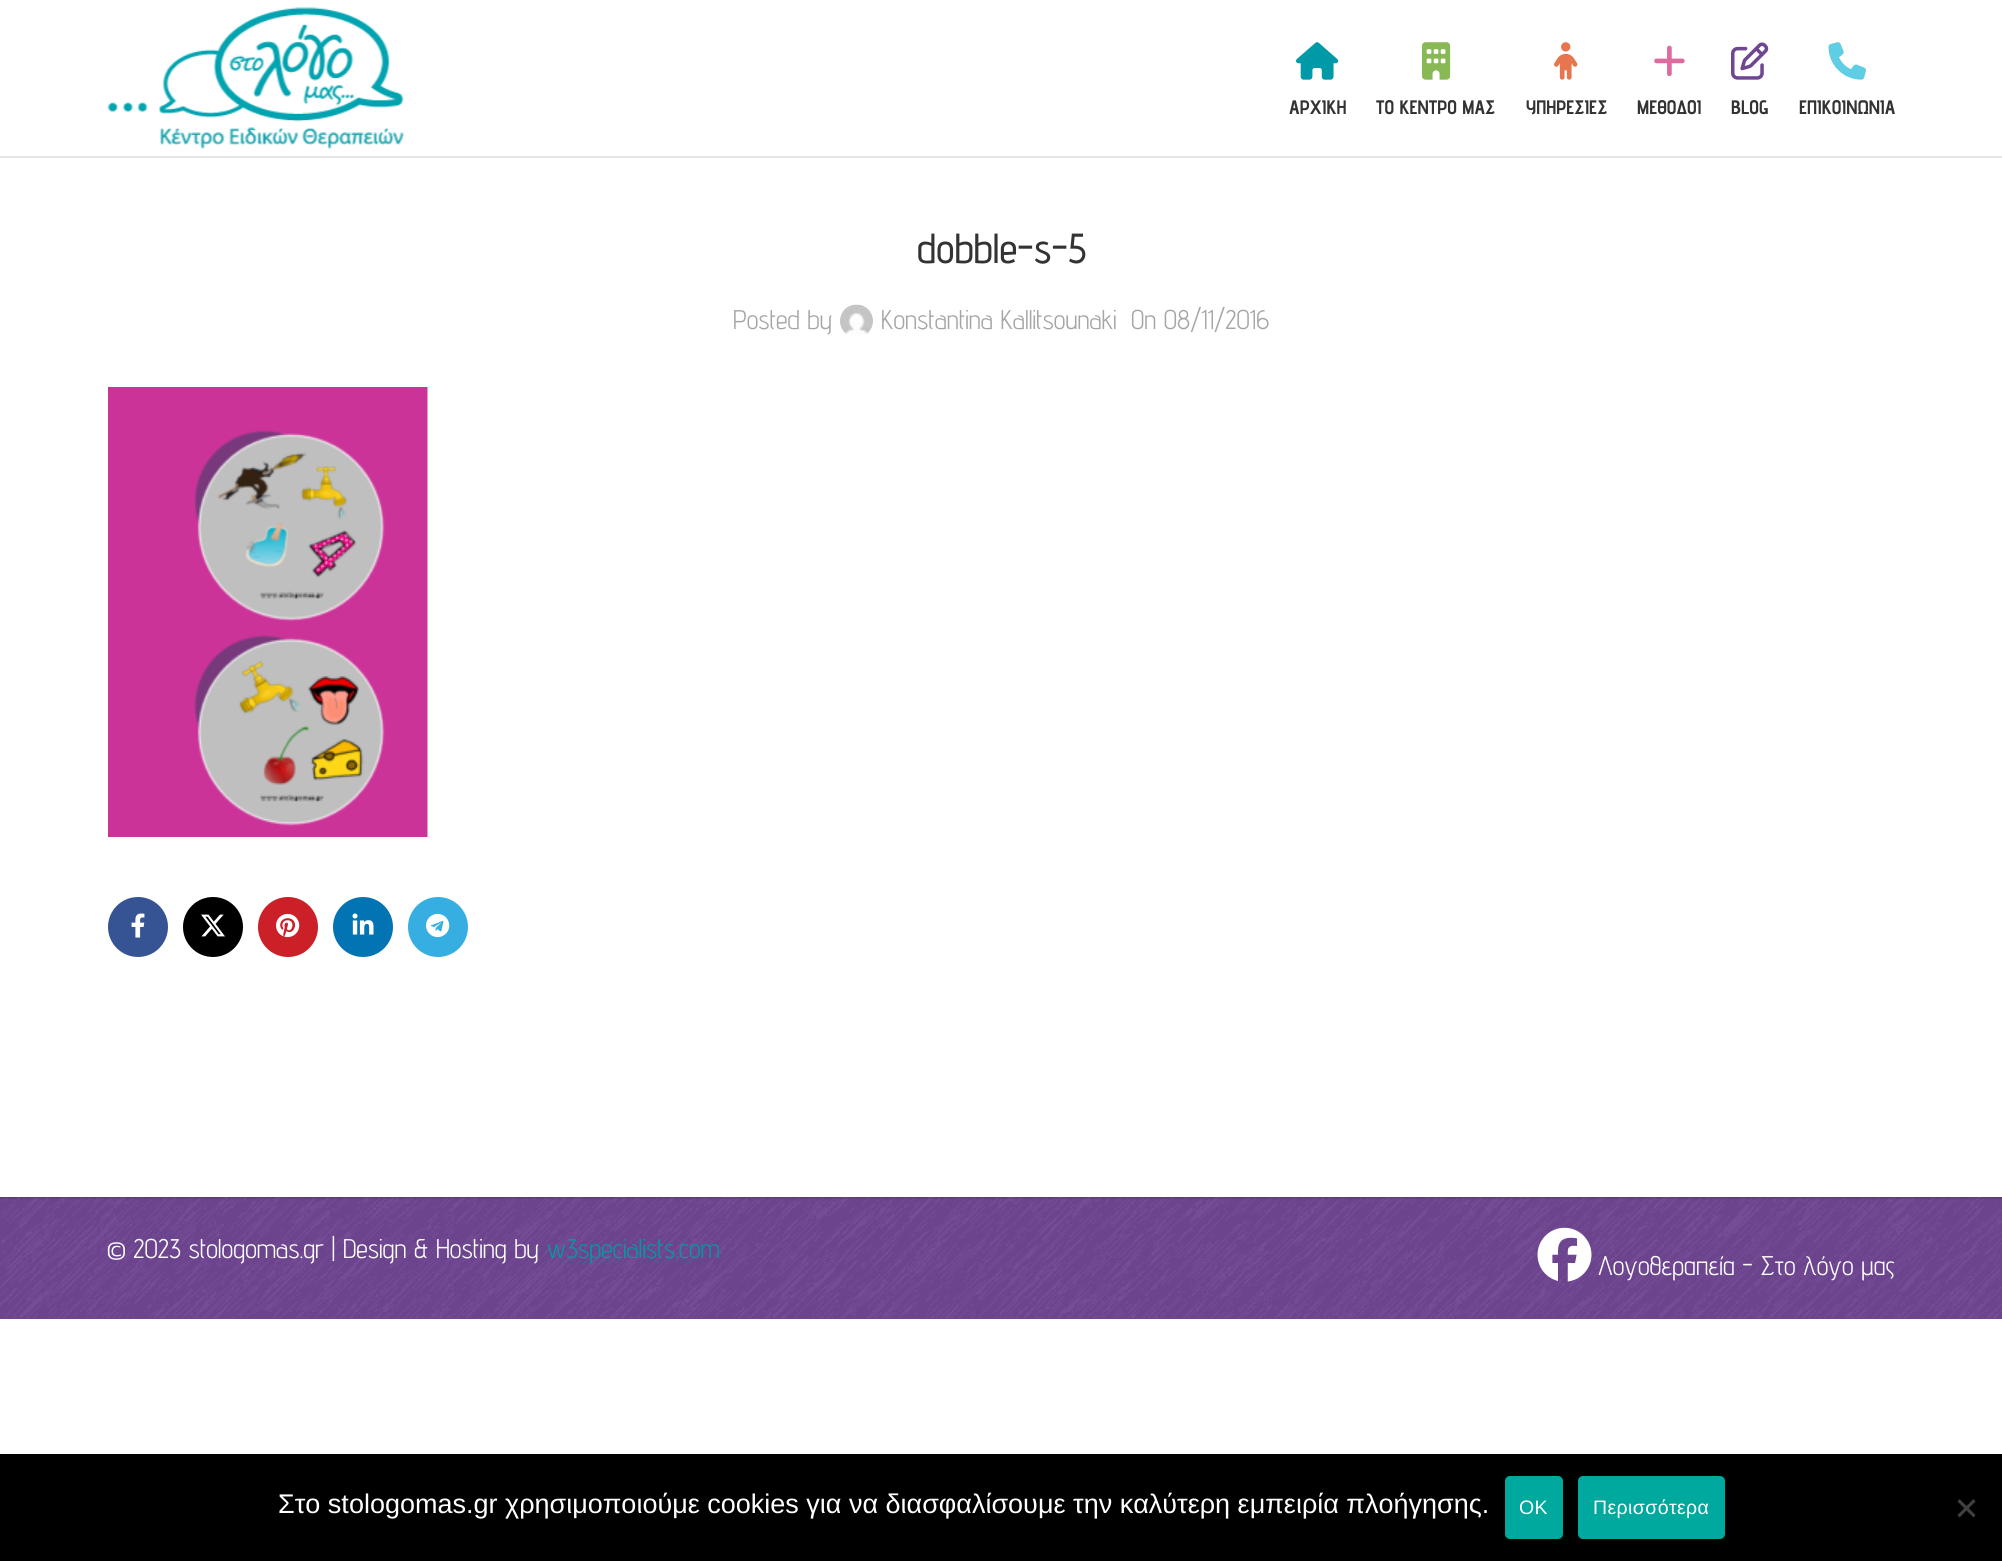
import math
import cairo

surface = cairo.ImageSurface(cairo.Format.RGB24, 2002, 1561)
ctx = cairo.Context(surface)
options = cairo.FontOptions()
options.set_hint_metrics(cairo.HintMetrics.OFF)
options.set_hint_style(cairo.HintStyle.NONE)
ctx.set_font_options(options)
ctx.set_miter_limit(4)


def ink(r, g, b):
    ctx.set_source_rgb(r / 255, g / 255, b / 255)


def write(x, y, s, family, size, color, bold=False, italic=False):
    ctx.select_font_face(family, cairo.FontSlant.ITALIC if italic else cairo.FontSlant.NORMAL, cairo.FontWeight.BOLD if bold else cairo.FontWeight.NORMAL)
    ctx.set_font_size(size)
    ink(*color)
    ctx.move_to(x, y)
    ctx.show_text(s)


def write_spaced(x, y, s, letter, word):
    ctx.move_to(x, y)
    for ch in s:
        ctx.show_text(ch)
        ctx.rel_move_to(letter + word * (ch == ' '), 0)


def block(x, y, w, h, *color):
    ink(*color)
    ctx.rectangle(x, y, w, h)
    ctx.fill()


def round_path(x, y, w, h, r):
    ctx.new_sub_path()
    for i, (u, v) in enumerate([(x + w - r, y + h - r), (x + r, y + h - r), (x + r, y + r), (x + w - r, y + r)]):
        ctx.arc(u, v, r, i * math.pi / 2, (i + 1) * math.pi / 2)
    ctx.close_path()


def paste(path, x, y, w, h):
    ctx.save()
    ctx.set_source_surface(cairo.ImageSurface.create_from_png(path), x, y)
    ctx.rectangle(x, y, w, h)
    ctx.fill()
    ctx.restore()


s1 = dict(family="Advent Pro", size=19.5, color=(51, 51, 51), bold=True)
s2 = dict(family="Advent Pro Medium", size=42, color=(51, 51, 51))
s3 = dict(family="Advent Pro", size=27, color=(165, 165, 165))
s4 = dict(family="Advent Pro", size=27, color=(255, 255, 255))
s5 = dict(family="Advent Pro", size=27, color=(0, 153, 167))
s6 = dict(family="Liberation Sans", size=27, color=(255, 255, 255))

ink(255, 255, 255)
ctx.paint()
block(0, 156, 2002, 2, 230, 230, 230)
paste("pic1.png", 107, 7, 297, 142)
paste("pic2.png", 1296, 42, 43, 38)
write(1289, 114, "ΑΡΧΙΚΗ", **s1)
paste("pic3.png", 1422, 42, 29, 38)
write(1376, 114, "ΤΟ ΚΕΝΤΡΟ ΜΑΣ", **s1)
paste("pic4.png", 1554, 42, 24, 38)
write(1526, 114, "ΥΠΗΡΕΣΙΕΣ", **s1)
paste("pic5.png", 1654, 45, 31, 32)
write(1637, 114, "MΕΘΟΔΟΙ", **s1)
paste("pic6.png", 1731, 42, 38, 38)
write(1731, 114, "BLOG", **s1)
paste("pic7.png", 1828, 42, 38, 38)
write(1799, 114, "ΕΠΙΚΟΙΝΩΝΙΑ", **s1)
write(917, 263, "dobble-s-5", **s2)
write(733, 329, "Posted by", **s3)
paste("pic8.png", 840, 304, 33, 31)
write(881, 329, "Konstantina Kallitsounaki", **s3)
write(1131, 329, "On 08/11/2016", **s3)
paste("pic9.png", 108, 387, 320, 450)
ink(54, 84, 147)
ctx.arc(138, 927, 30, 0, 2 * math.pi)
ctx.fill()
paste("pic10.png", 131, 913, 14, 25)
ink(0, 0, 0)
ctx.arc(213, 927, 30, 0, 2 * math.pi)
ctx.fill()
paste("pic11.png", 201, 914, 24, 23)
ink(203, 32, 39)
ctx.arc(288, 927, 30, 0, 2 * math.pi)
ctx.fill()
paste("pic12.png", 276, 913, 24, 25)
ink(2, 116, 179)
ctx.arc(363, 927, 30, 0, 2 * math.pi)
ctx.fill()
paste("pic13.png", 352, 913, 22, 22)
ink(55, 174, 226)
ctx.arc(438, 927, 30, 0, 2 * math.pi)
ctx.fill()
paste("pic14.png", 426, 913, 24, 25)
block(0, 1197, 2002, 122, 110, 70, 146)
paste("pic15.png", 0, 1197, 2002, 121)
ctx.set_source_rgba(0, 0, 0, 0.11)
ctx.rectangle(0, 1197, 2002, 2)
ctx.fill()
write(107, 1258, "© 2023 stologomas.gr | Design & Hosting by", **s4)
write(547, 1258, "w3specialists.com", **s5)
paste("pic16.png", 1537, 1227, 55, 55)
write(1598, 1275, "Λογοθεραπεία - Στο λόγο μας", **s4)
block(0, 1454, 2002, 107, 0, 0, 0)
write(278, 1513, "Στο stologomas.gr χρησιμοποιούμε cookies για να διασφαλίσουμε την καλύτερη εμπειρία πλοήγησης.", **s6)
ink(0, 169, 157)
round_path(1505, 1476, 58, 63, 5)
ctx.fill()
ctx.set_font_size(19.5)
ink(255, 255, 255)
write_spaced(1519, 1514, "ΟΚ", 0.4, 0)
ink(0, 169, 157)
round_path(1578, 1476, 147, 63, 5)
ctx.fill()
ink(255, 255, 255)
write_spaced(1593, 1514, "Περισσότερα", 0.4, 0)
ink(64, 64, 64)
ctx.new_path()
ctx.move_to(1973.5, 1499)
ctx.line_to(1975.5, 1501.5)
ctx.line_to(1959.5, 1517.5)
ctx.line_to(1957.5, 1515)
ctx.close_path()
ctx.fill()
ctx.new_path()
ctx.move_to(1957.5, 1501.5)
ctx.line_to(1959.5, 1499)
ctx.line_to(1975.5, 1515)
ctx.line_to(1973.5, 1517.5)
ctx.close_path()
ctx.fill()
surface.write_to_png("screenshot.png")
